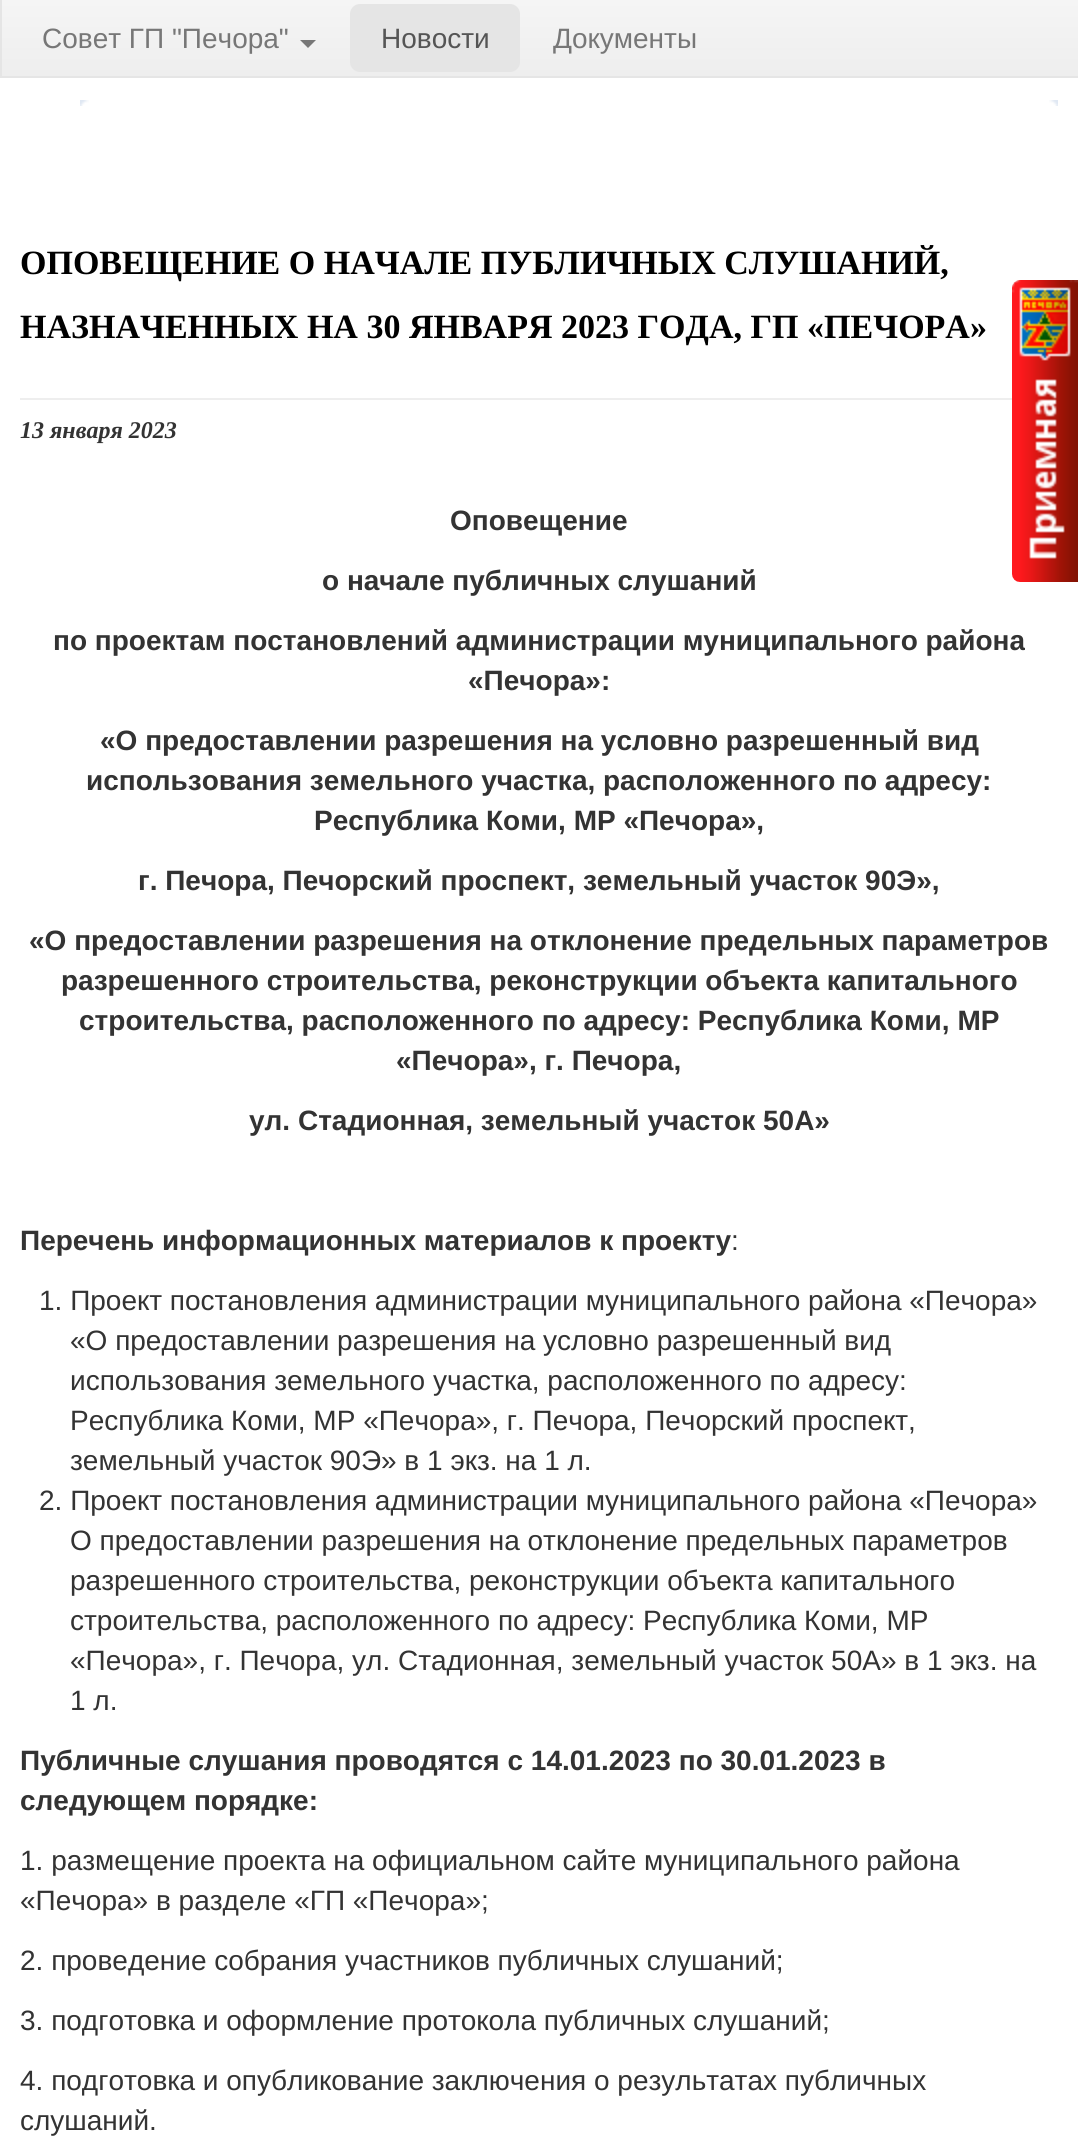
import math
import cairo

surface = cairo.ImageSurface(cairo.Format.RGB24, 1078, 2140)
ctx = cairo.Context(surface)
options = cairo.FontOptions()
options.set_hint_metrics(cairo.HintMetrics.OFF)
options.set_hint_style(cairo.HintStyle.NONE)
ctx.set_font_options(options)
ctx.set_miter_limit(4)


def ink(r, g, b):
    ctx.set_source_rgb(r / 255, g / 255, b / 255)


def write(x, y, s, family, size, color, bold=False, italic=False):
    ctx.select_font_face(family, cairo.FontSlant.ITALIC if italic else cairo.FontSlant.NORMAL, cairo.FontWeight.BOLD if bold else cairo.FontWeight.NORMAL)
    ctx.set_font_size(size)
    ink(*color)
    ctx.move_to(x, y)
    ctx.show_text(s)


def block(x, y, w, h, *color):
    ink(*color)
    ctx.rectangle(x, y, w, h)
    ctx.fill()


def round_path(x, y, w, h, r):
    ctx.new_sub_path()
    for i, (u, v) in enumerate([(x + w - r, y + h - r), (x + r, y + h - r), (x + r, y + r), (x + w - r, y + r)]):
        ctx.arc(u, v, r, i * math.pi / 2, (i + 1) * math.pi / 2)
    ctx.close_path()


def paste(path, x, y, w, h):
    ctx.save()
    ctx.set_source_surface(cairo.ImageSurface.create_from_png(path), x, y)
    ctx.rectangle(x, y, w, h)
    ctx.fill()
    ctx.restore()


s1 = dict(family="Liberation Sans", size=28, color=(119, 119, 119))
s2 = dict(family="Liberation Sans", size=28, color=(85, 85, 85))
s3 = dict(family="Liberation Serif", size=34, color=(0, 0, 0), bold=True)
s4 = dict(family="Liberation Serif", size=24, color=(51, 51, 51), bold=True, italic=True)
s5 = dict(family="Liberation Sans", size=28, color=(51, 51, 51), bold=True)
s6 = dict(family="Liberation Sans", size=28, color=(51, 51, 51))

ink(255, 255, 255)
ctx.paint()
gradient = cairo.LinearGradient(551, 0, 551, 76)
gradient.add_color_stop_rgba(0, 0.961, 0.961, 0.961, 1)
gradient.add_color_stop_rgba(1, 0.933, 0.933, 0.933, 1)
ctx.set_source(gradient)
ctx.rectangle(2, 0, 1076, 76)
ctx.fill()
ctx.rectangle(1, -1, 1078, 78)
ink(229, 229, 229)
ctx.stroke()
write(42, 48, "Совет ГП \"Печора\"", **s1)
ctx.new_path()
ctx.move_to(300, 40)
ctx.line_to(316, 40)
ctx.line_to(308, 48)
ctx.close_path()
ctx.fill()
ink(229, 229, 229)
round_path(350, 4, 170, 68, 10)
ctx.fill()
write(381, 48, "Новости", **s2)
write(553, 48, "Документы", **s1)
paste("pic1.png", 1049, 100, 9, 6)
paste("pic2.png", 80, 100, 9, 6)
paste("pic3.png", 1012, 280, 66, 302)
block(20, 398, 992, 2, 238, 238, 238)
write(20, 274, "ОПОВЕЩЕНИЕ О НАЧАЛЕ ПУБЛИЧНЫХ СЛУШАНИЙ,", **s3)
write(20, 338, "НАЗНАЧЕННЫХ НА 30 ЯНВАРЯ 2023 ГОДА, ГП «ПЕЧОРА»", **s3)
write(20, 438, "13 января 2023", **s4)
write(450, 530, "Оповещение", **s5)
write(322, 590, "о начале публичных слушаний", **s5)
write(53, 650, "по проектам постановлений администрации муниципального района", **s5)
write(468, 690, "«Печора»:", **s5)
write(100, 750, "«О предоставлении разрешения на условно разрешенный вид", **s5)
write(86, 790, "использования земельного участка, расположенного по адресу:", **s5)
write(314, 830, "Республика Коми, МР «Печора»,", **s5)
write(138, 890, "г. Печора, Печорский проспект, земельный участок 90Э»,", **s5)
write(29, 950, "«О предоставлении разрешения на отклонение предельных параметров", **s5)
write(61, 990, "разрешенного строительства, реконструкции объекта капитального", **s5)
write(79, 1030, "строительства, расположенного по адресу: Республика Коми, МР", **s5)
write(396, 1070, "«Печора», г. Печора,", **s5)
write(249, 1130, "ул. Стадионная, земельный участок 50А»", **s5)
write(20, 1250, "Перечень информационных материалов к проекту", **s5)
write(731, 1250, ":", **s6)
write(39, 1310, "1. Проект постановления администрации муниципального района «Печора»", **s6)
write(70, 1350, "«О предоставлении разрешения на условно разрешенный вид", **s6)
write(70, 1390, "использования земельного участка, расположенного по адресу:", **s6)
write(70, 1430, "Республика Коми, МР «Печора», г. Печора, Печорский проспект,", **s6)
write(70, 1470, "земельный участок 90Э» в 1 экз. на 1 л.", **s6)
write(39, 1510, "2. Проект постановления администрации муниципального района «Печора»", **s6)
write(70, 1550, "О предоставлении разрешения на отклонение предельных параметров", **s6)
write(70, 1590, "разрешенного строительства, реконструкции объекта капитального", **s6)
write(70, 1630, "строительства, расположенного по адресу: Республика Коми, МР", **s6)
write(70, 1670, "«Печора», г. Печора, ул. Стадионная, земельный участок 50А» в 1 экз. на", **s6)
write(70, 1710, "1 л.", **s6)
write(20, 1770, "Публичные слушания проводятся с 14.01.2023 по 30.01.2023 в", **s5)
write(20, 1810, "следующем порядке:", **s5)
write(20, 1870, "1. размещение проекта на официальном сайте муниципального района", **s6)
write(20, 1910, "«Печора» в разделе «ГП «Печора»;", **s6)
write(20, 1970, "2. проведение собрания участников публичных слушаний;", **s6)
write(20, 2030, "3. подготовка и оформление протокола публичных слушаний;", **s6)
write(20, 2090, "4. подготовка и опубликование заключения о результатах публичных", **s6)
write(20, 2130, "слушаний.", **s6)
surface.write_to_png("screenshot.png")
